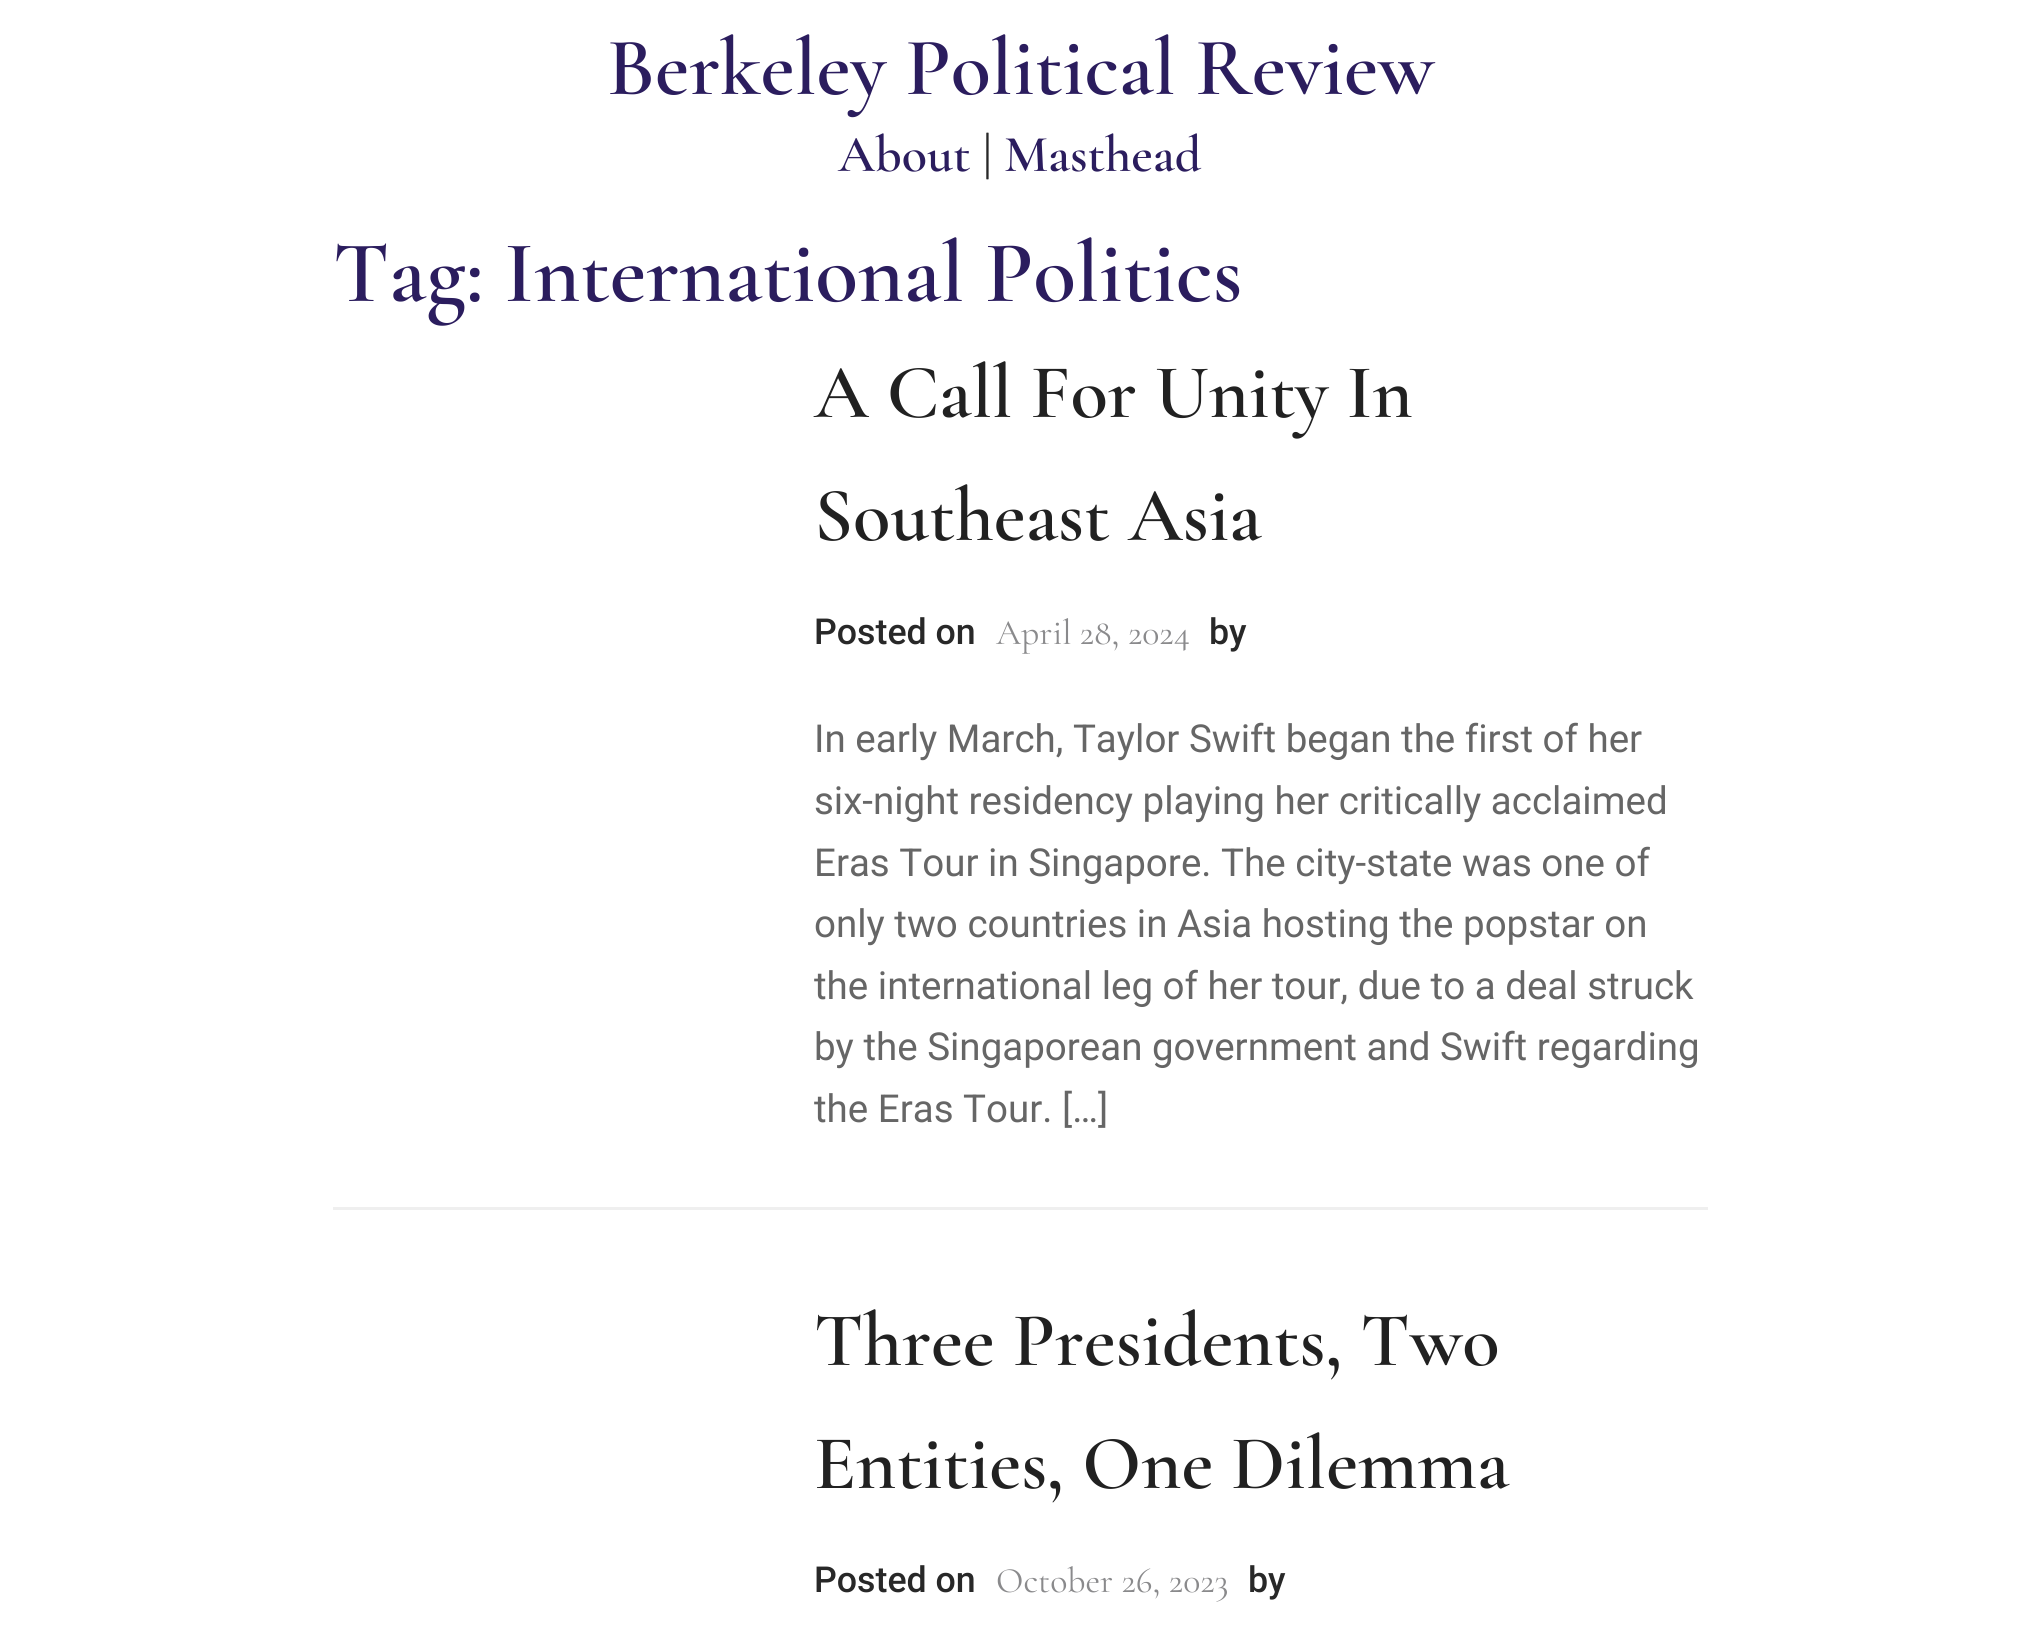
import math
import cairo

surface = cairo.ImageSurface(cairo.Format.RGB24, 2038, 1636)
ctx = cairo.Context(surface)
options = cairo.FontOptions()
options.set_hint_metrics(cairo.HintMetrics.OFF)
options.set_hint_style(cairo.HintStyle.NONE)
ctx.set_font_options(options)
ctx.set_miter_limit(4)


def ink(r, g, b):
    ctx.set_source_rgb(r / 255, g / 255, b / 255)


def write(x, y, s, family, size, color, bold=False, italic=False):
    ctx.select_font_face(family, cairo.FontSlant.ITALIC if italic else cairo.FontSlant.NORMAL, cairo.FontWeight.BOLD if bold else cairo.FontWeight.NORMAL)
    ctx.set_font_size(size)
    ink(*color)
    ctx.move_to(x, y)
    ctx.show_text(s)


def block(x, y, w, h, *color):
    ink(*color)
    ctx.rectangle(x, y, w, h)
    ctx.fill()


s1 = dict(family="Cormorant Garamond SemiBold", size=82.5, color=(43, 29, 94))
s2 = dict(family="Cormorant Garamond SemiBold", size=52, color=(43, 29, 94))
s3 = dict(family="Cormorant Garamond SemiBold", size=52, color=(40, 40, 40))
s4 = dict(family="Cormorant Garamond SemiBold", size=88, color=(43, 29, 94))
s5 = dict(family="Cormorant Garamond SemiBold", size=77, color=(33, 33, 33))
s6 = dict(family="Roboto Medium", size=35.75, color=(40, 40, 40))
s7 = dict(family="Cormorant Garamond", size=35.75, color=(138, 138, 140))
s8 = dict(family="Roboto", size=38.5, color=(102, 102, 102))

ink(255, 255, 255)
ctx.paint()
write(607, 94, "Berkeley Political Review", **s1)
write(838, 171, "About", **s2)
write(983, 171, "|", **s3)
write(1004, 171, "Masthead", **s2)
write(333, 301, "Tag: International Politics", **s4)
block(333, 1207, 1375, 3, 239, 239, 239)
write(814, 417, "A Call For Unity In", **s5)
write(814, 540, "Southeast Asia", **s5)
write(814, 644, "Posted on", **s6)
write(996, 644, "April 28, 2024", **s7)
write(1209, 644, "by", **s6)
write(814, 752, "In early March, Taylor Swift began the first of her", **s8)
write(814, 814, "six-night residency playing her critically acclaimed", **s8)
write(814, 876, "Eras Tour in Singapore. The city-state was one of", **s8)
write(814, 937, "only two countries in Asia hosting the popstar on", **s8)
write(814, 999, "the international leg of her tour, due to a deal struck", **s8)
write(814, 1060, "by the Singaporean government and Swift regarding", **s8)
write(814, 1122, "the Eras Tour. […]", **s8)
write(814, 1365, "Three Presidents, Two", **s5)
write(814, 1488, "Entities, One Dilemma", **s5)
write(814, 1592, "Posted on", **s6)
write(996, 1592, "October 26, 2023", **s7)
write(1248, 1592, "by", **s6)
surface.write_to_png("screenshot.png")
